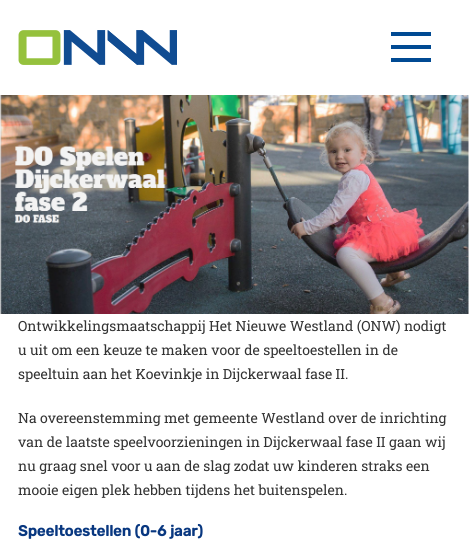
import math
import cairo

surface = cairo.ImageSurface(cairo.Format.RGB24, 469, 552)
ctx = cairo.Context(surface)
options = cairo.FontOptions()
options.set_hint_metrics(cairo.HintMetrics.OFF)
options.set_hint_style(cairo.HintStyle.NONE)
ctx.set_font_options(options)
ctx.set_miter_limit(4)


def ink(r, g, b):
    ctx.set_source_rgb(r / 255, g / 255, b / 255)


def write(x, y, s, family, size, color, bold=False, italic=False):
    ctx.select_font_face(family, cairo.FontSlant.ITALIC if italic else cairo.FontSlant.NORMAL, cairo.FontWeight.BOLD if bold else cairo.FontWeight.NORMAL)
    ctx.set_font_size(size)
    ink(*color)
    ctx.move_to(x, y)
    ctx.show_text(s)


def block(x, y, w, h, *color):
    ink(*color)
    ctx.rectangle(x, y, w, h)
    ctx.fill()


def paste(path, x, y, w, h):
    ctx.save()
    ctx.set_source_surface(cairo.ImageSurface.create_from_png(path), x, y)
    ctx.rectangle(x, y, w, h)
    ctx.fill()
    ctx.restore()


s1 = dict(family="Roboto Slab", size=14, color=(51, 51, 51))
s2 = dict(family="Rubik", size=15, color=(8, 55, 128), bold=True)

ink(255, 255, 255)
ctx.paint()
paste("pic1.png", 18, 30, 159, 35)
block(391, 32, 40, 4, 0, 74, 147)
block(391, 45, 40, 4, 0, 74, 147)
block(391, 58, 40, 4, 0, 74, 147)
paste("pic2.png", 0, 95, 469, 219)
write(18, 331, "Ontwikkelingsmaatschappij Het Nieuwe Westland (ONW) nodigt", **s1)
write(18, 355, "u uit om een keuze te maken voor de speeltoestellen in de", **s1)
write(18, 379, "speeltuin aan het Koevinkje in Dijckerwaal fase II.", **s1)
write(18, 423, "Na overeenstemming met gemeente Westland over de inrichting", **s1)
write(18, 447, "van de laatste speelvoorzieningen in Dijckerwaal fase II gaan wij", **s1)
write(18, 471, "nu graag snel voor u aan de slag zodat uw kinderen straks een", **s1)
write(18, 495, "mooie eigen plek hebben tijdens het buitenspelen.", **s1)
write(18, 536, "Speeltoestellen (0-6 jaar)", **s2)
surface.write_to_png("screenshot.png")
